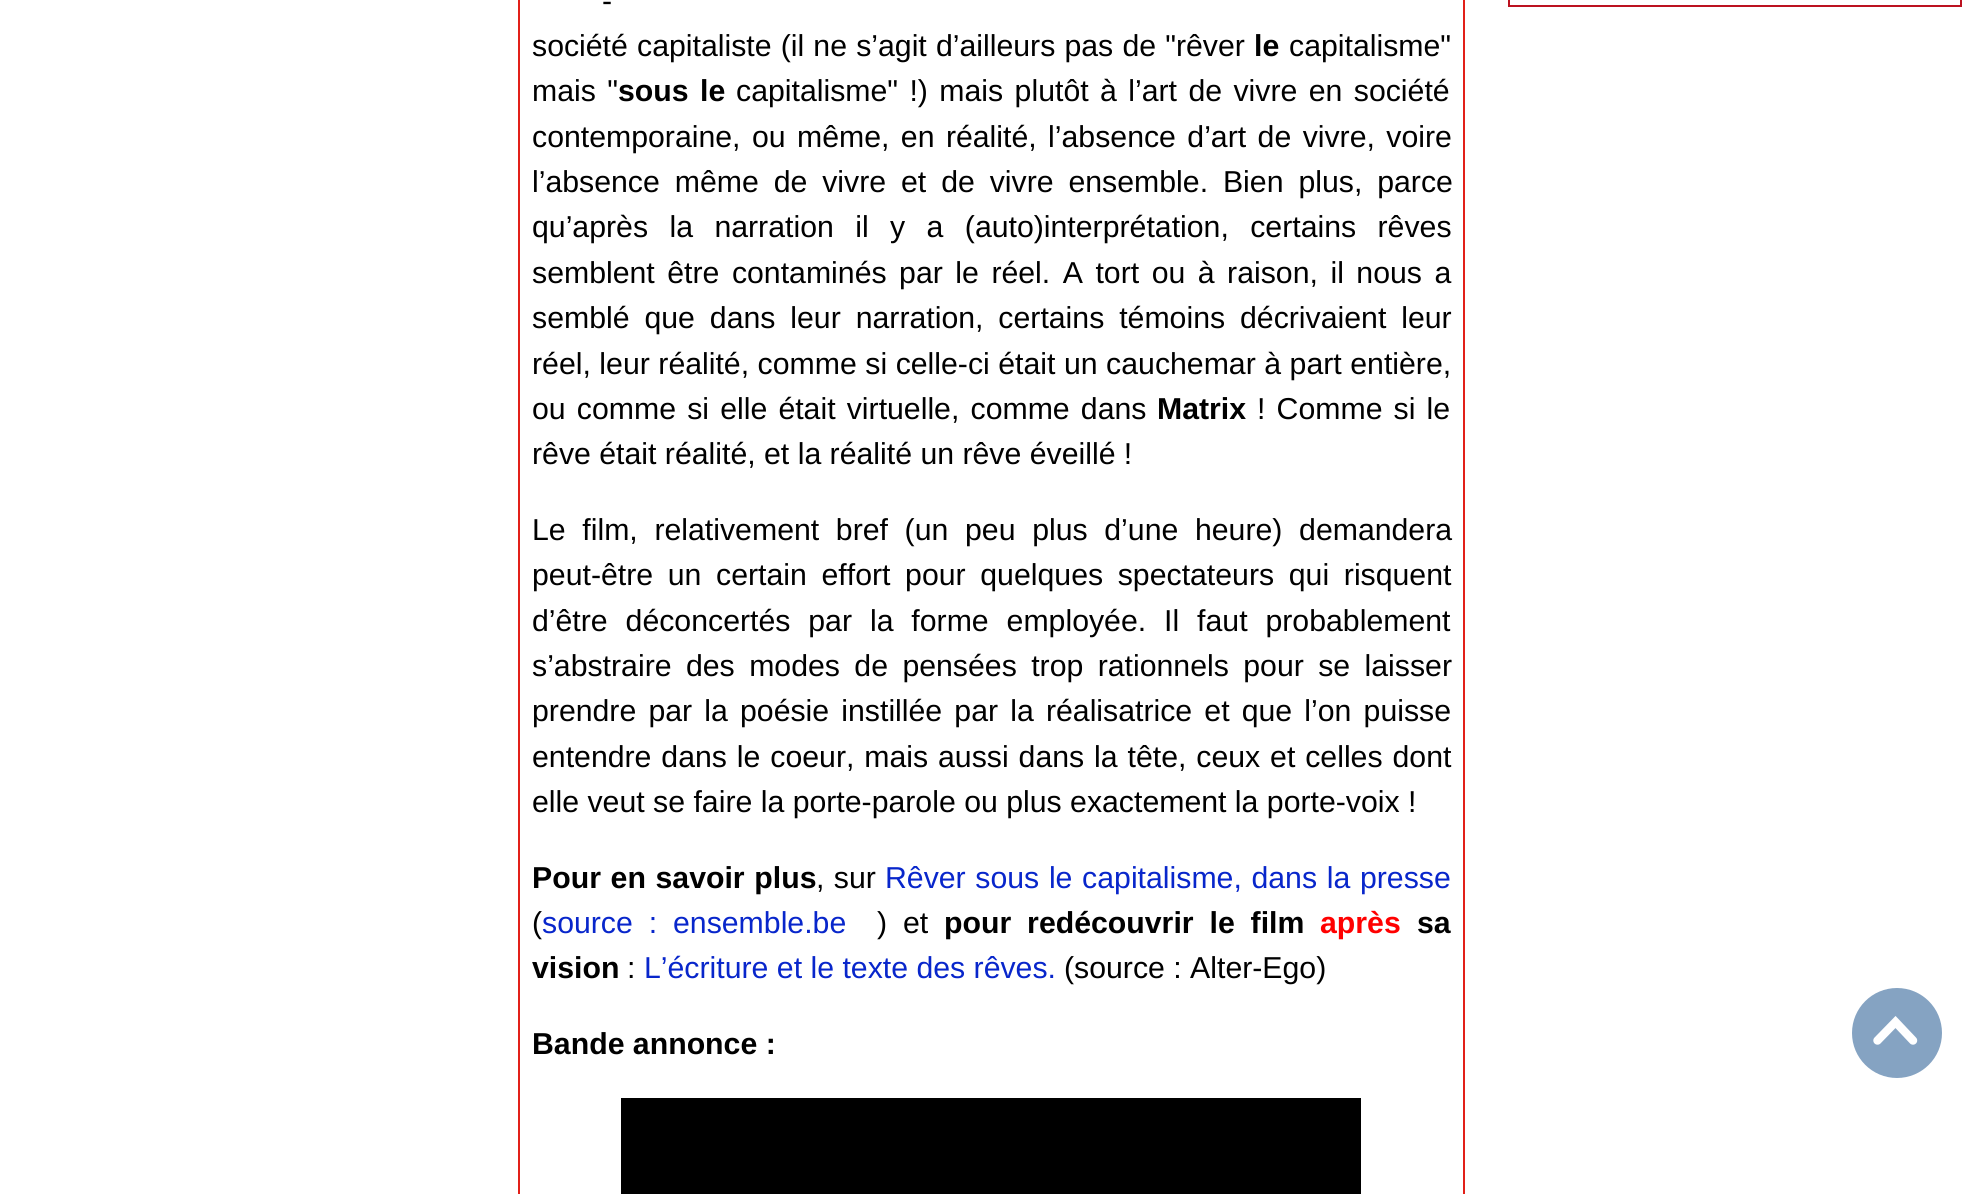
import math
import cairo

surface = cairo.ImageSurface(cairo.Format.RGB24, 1981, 1194)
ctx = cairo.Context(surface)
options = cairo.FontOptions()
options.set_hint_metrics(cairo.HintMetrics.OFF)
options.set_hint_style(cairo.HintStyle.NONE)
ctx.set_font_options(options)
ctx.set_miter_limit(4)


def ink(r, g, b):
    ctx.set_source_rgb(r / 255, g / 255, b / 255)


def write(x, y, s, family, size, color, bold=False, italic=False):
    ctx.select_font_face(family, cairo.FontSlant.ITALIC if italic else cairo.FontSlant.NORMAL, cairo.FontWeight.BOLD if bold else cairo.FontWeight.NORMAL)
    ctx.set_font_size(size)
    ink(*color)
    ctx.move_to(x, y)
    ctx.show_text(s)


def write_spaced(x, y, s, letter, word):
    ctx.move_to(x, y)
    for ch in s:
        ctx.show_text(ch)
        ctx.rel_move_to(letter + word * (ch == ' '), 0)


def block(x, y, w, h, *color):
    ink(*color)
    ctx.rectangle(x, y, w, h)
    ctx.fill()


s1 = dict(family="Liberation Sans", size=30.25, color=(0, 0, 0), bold=True)
s2 = dict(family="Liberation Sans", size=30.25, color=(0, 0, 0))
s3 = dict(family="Liberation Sans", size=30.25, color=(255, 0, 0), bold=True)
s4 = dict(family="Liberation Sans", size=30.25, color=(8, 38, 203))

ink(255, 255, 255)
ctx.paint()
ctx.rectangle(519, -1, 945, 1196)
ink(226, 32, 25)
ctx.stroke()
ctx.select_font_face("Liberation Sans")
ctx.set_font_size(30.25)
ink(0, 0, 0)
write_spaced(602, 11, "-", 0, 2)
write_spaced(532, 56, "société capitaliste (il ne s’agit d’ailleurs pas de \"rêver", 0, 0.75)
write(1254, 56, "le", **s1)
write(1289, 56, "capitalisme\"", **s2)
write_spaced(532, 101, "mais \"", 0, 3)
ctx.select_font_face("Liberation Sans", cairo.FontSlant.NORMAL, cairo.FontWeight.BOLD)
write_spaced(618, 101, "sous le", 0, 3)
ctx.select_font_face("Liberation Sans")
write_spaced(736, 101, "capitalisme\" !) mais plutôt à l’art de vivre en société", 0, 3)
write_spaced(532, 147, "contemporaine, ou même, en réalité, l’absence d’art de vivre, voire", 0, 3)
write_spaced(532, 192, "l’absence même de vivre et de vivre ensemble. Bien plus, parce", 0, 6.5)
write_spaced(532, 237, "qu’après la narration il y a (auto)interprétation, certains rêves", 0, 13)
write_spaced(532, 283, "semblent être contaminés par le réel. A tort ou à raison, il nous a", 0, 4.1)
write_spaced(532, 328, "semblé que dans leur narration, certains témoins décrivaient leur", 0, 6.5)
write_spaced(532, 374, "réel, leur réalité, comme si celle-ci était un cauchemar à part entière,", 0, 0.1)
write_spaced(532, 419, "ou comme si elle était virtuelle, comme dans", 0, 2.75)
write(1157, 419, "Matrix", **s1)
ctx.select_font_face("Liberation Sans")
write_spaced(1257, 419, "! Comme si le", 0, 2.75)
write(532, 464, "rêve était réalité, et la réalité un rêve éveillé !", **s2)
write_spaced(532, 540, "Le film, relativement bref (un peu plus d’une heure) demandera", 0, 8.25)
write_spaced(532, 585, "peut-être un certain effort pour quelques spectateurs qui risquent", 0, 6.25)
write_spaced(532, 631, "d’être déconcertés par la forme employée. Il faut probablement", 0, 9.5)
write_spaced(532, 676, "s’abstraire des modes de pensées trop rationnels pour se laisser", 0, 6)
write_spaced(532, 721, "prendre par la poésie instillée par la réalisatrice et que l’on puisse", 0, 3.75)
write_spaced(532, 767, "entendre dans le coeur, mais aussi dans la tête, ceux et celles dont", 0, 1.5)
write(532, 812, "elle veut se faire la porte-parole ou plus exactement la porte-voix !", **s2)
ctx.select_font_face("Liberation Sans", cairo.FontSlant.NORMAL, cairo.FontWeight.BOLD)
write_spaced(532, 888, "Pour en savoir plus", 0, 1.25)
ctx.select_font_face("Liberation Sans")
write_spaced(816, 888, ", sur", 0, 1)
ink(8, 38, 203)
write_spaced(885, 888, "Rêver sous le capitalisme, dans la presse", 0, 1.25)
write(532, 933, "(", **s2)
ink(8, 38, 203)
write_spaced(542, 933, "source : ensemble.be", 0, 7.5)
ink(0, 0, 0)
write_spaced(877, 933, ") et", 0, 7.5)
ctx.select_font_face("Liberation Sans", cairo.FontSlant.NORMAL, cairo.FontWeight.BOLD)
write_spaced(944, 933, "pour redécouvrir le film", 0, 7.5)
write(1320, 933, "après", **s3)
write(1417, 933, "sa", **s1)
write(532, 978, "vision", **s1)
write(627, 978, ":", **s2)
write(644, 978, "L’écriture et le texte des rêves.", **s4)
write(1064, 978, "(source : Alter-Ego)", **s2)
write(532, 1054, "Bande annonce :", **s1)
block(621, 1098, 740, 96, 0, 0, 0)
block(1960, 0, 2, 7, 188, 18, 32)
block(1508, 5, 454, 2, 188, 18, 32)
block(1508, 0, 2, 7, 188, 18, 32)
ink(133, 163, 194)
ctx.new_path()
ctx.arc(1897, 1033, 45, 0, 2 * math.pi)
ctx.fill()
ctx.new_path()
ctx.move_to(1877.5, 1040.5)
ctx.line_to(1895.5, 1022)
ctx.line_to(1913, 1040.5)
ink(255, 255, 255)
ctx.set_line_width(8.4)
ctx.set_line_cap(cairo.LineCap.ROUND)
ctx.stroke()
surface.write_to_png("screenshot.png")
